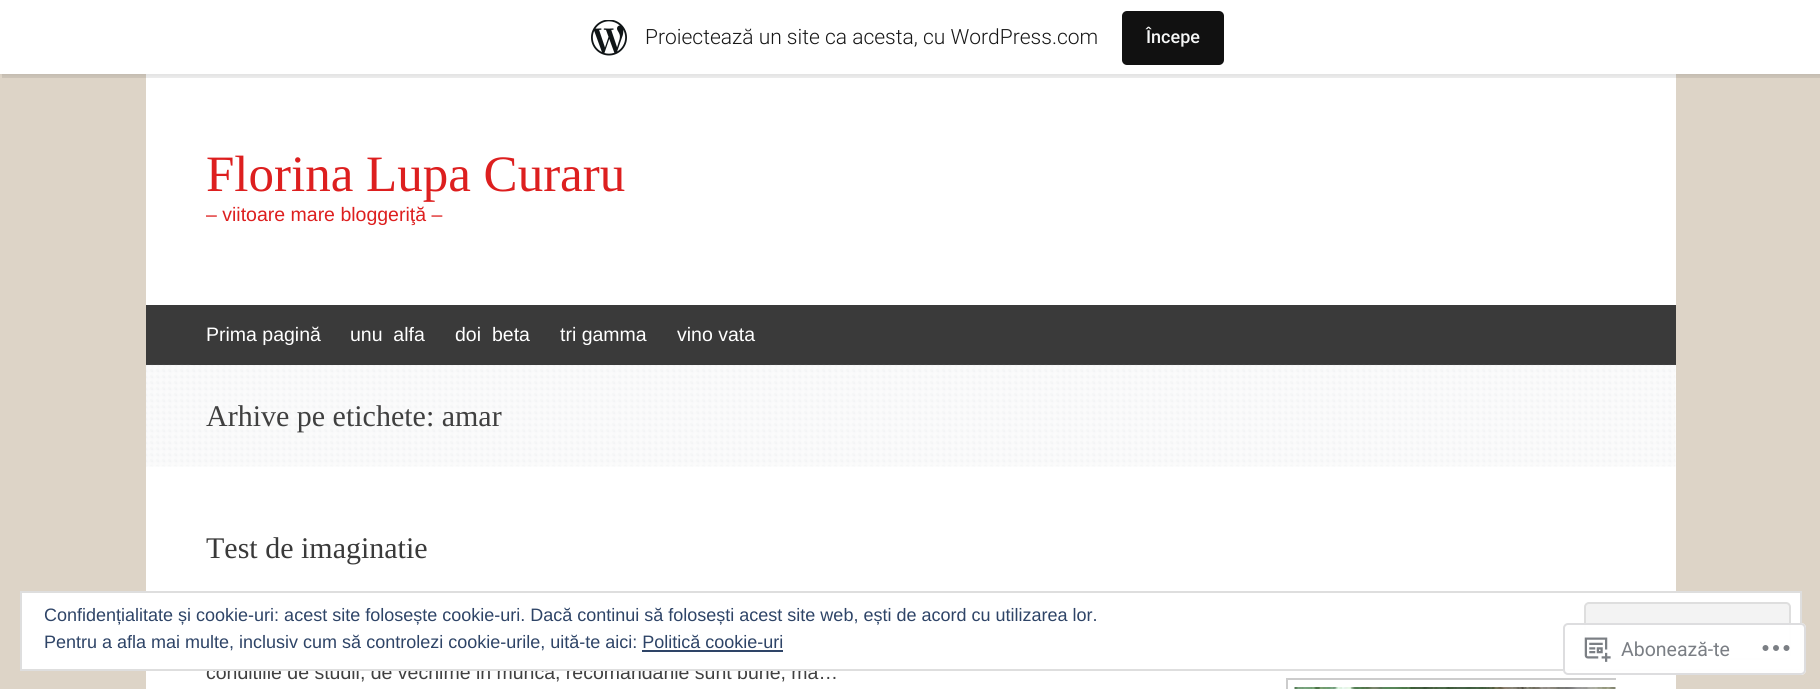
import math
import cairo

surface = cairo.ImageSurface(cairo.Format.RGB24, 1820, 689)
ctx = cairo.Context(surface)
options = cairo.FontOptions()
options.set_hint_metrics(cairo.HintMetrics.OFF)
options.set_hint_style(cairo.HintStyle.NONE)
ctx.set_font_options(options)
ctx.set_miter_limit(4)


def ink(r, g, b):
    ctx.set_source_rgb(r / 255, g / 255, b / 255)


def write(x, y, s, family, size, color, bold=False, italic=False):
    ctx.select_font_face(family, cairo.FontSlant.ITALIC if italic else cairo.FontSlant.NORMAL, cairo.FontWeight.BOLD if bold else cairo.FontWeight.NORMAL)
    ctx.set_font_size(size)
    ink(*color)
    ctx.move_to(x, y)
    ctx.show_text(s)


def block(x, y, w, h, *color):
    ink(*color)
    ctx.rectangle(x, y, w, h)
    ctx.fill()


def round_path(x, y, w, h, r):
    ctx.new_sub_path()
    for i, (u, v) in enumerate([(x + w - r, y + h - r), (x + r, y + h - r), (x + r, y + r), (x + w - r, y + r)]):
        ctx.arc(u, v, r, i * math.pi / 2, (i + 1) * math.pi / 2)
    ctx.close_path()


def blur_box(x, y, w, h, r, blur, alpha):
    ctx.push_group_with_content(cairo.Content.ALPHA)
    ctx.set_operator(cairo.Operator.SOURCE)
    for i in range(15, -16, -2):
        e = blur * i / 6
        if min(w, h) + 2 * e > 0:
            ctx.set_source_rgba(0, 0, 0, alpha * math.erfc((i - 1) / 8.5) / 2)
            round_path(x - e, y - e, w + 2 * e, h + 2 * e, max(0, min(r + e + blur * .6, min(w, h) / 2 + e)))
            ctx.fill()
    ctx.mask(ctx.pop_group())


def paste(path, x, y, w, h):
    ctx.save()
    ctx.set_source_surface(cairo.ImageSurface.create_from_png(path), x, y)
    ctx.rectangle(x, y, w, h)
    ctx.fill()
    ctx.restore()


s1 = dict(family="Roboto Light", size=21, color=(23, 23, 23))
s2 = dict(family="Roboto Medium", size=18, color=(246, 247, 247))
s3 = dict(family="Liberation Serif", size=51, color=(221, 31, 31))
s4 = dict(family="Liberation Sans", size=19.5, color=(221, 31, 31))
s5 = dict(family="Liberation Sans", size=19.5, color=(255, 255, 255))
s6 = dict(family="Liberation Serif", size=30, color=(64, 64, 64))
s7 = dict(family="Liberation Serif", size=30, color=(58, 58, 58))
s8 = dict(family="Liberation Sans", size=19.5, color=(64, 64, 64))
s9 = dict(family="Liberation Sans", size=18, color=(46, 68, 103))
s10 = dict(family="Roboto", size=19.5, color=(122, 126, 132))

ink(221, 212, 199)
ctx.paint()
block(146, 74, 1530, 615, 255, 255, 255)
ink(0, 0, 0)
blur_box(0, 2, 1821, 73, 0, 1.5, 0.05)
ctx.set_source_rgba(0, 0, 0, 0.08)
ctx.new_path()
ctx.move_to(2, 74)
ctx.line_to(2, 78)
ctx.line_to(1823, 78)
ctx.line_to(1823, 5)
ctx.line_to(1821, 5)
ctx.line_to(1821, 74)
ctx.close_path()
ctx.fill()
block(0, 0, 1820, 74, 255, 255, 255)
paste("pic1.png", 591, 20, 36, 36)
write(645, 44, "Proiectează un site ca acesta, cu WordPress.com", **s1)
ink(17, 17, 17)
round_path(1122, 11, 102, 54, 5)
ctx.fill()
write(1146, 43, "Începe", **s2)
write(206, 191, "Florina Lupa Curaru", **s3)
write(206, 221, "– viitoare mare bloggeriţă –", **s4)
block(146, 305, 1530, 60, 58, 58, 58)
paste("pic2.png", 146, 364, 1530, 103)
block(191, 364, 579, 1, 58, 58, 58)
write(206, 341, "Prima pagină", **s5)
write(350, 341, "unu  alfa", **s5)
write(455, 341, "doi", **s5)
write(492, 341, "beta", **s5)
write(560, 341, "tri gamma", **s5)
write(677, 341, "vino vata", **s5)
write(206, 426, "Arhive pe etichete: amar", **s6)
write(206, 558, "Test de imaginatie", **s7)
write(206, 679, "conditiile de studii, de vechime in munca, recomandarile sunt bune, ma…", **s8)
ctx.save()
ctx.rectangle(1286, 618, 330, 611)
ctx.clip()
ctx.rectangle(1287, 679, 346, 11)
ink(204, 204, 204)
ctx.stroke()
ctx.restore()
paste("pic3.png", 1294, 687, 322, 2)
ink(255, 255, 255)
ctx.rectangle(21, 592, 1780, 78)
ctx.fill_preserve()
ink(222, 222, 222)
ctx.stroke()
write(44, 621, "Confidențialitate și cookie-uri: acest site folosește cookie-uri. Dacă continui să folosești acest site web, ești de acord cu utilizarea lor.", **s9)
ink(243, 243, 243)
round_path(1585, 603, 205, 56, 4)
ctx.fill_preserve()
ink(222, 222, 222)
ctx.stroke()
write(44, 648, "Pentru a afla mai multe, inclusiv cum să controlezi cookie-urile, uită-te aici: Politică cookie-uri", **s9)
block(642, 650, 141, 2, 46, 68, 103)
ctx.set_source_rgba(1, 1, 1, 0.98)
round_path(1563, 623, 243, 52, 5)
ctx.fill()
round_path(1564, 624, 241, 50, 4)
ctx.set_source_rgba(0.863, 0.863, 0.871, 0.98)
ctx.stroke()
paste("pic4.png", 1584, 637, 27, 25)
write(1621, 656, "Abonează-te", **s10)
paste("pic5.png", 1762, 645, 28, 6)
surface.write_to_png("screenshot.png")
